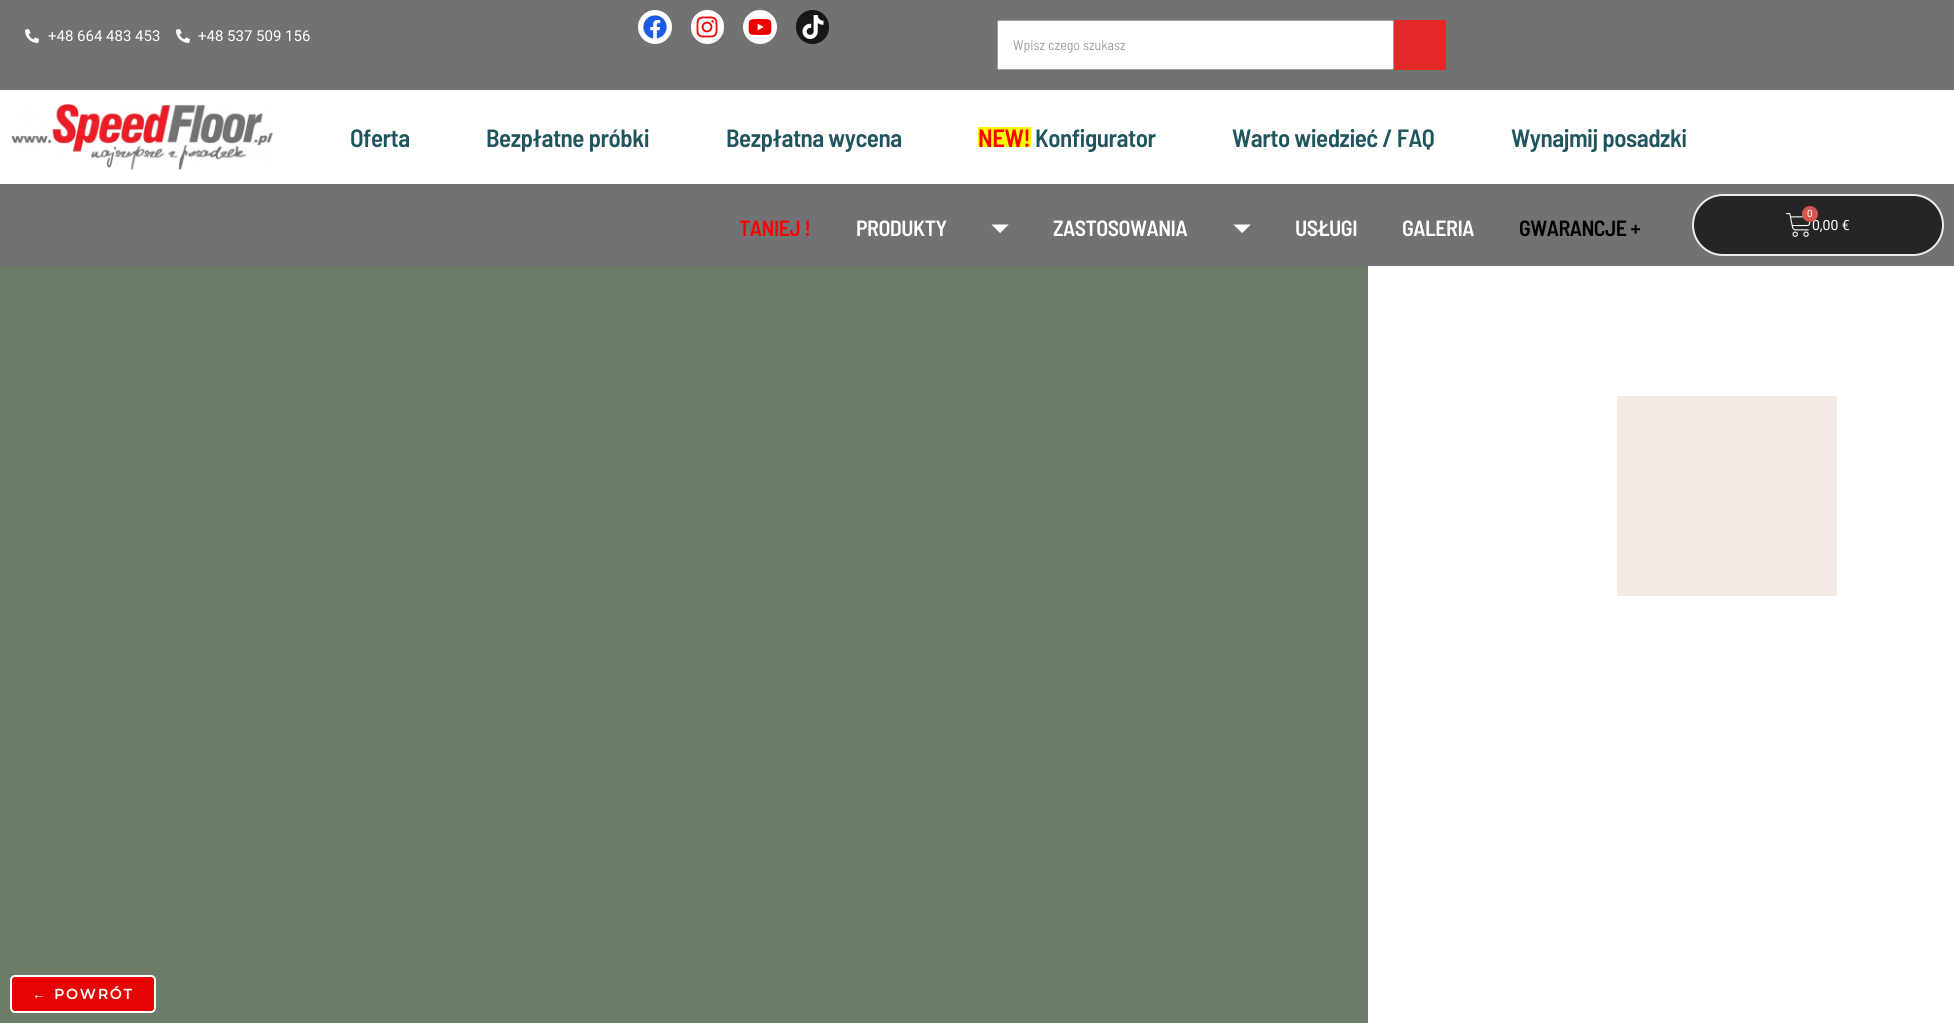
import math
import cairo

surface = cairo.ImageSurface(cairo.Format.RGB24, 1954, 1023)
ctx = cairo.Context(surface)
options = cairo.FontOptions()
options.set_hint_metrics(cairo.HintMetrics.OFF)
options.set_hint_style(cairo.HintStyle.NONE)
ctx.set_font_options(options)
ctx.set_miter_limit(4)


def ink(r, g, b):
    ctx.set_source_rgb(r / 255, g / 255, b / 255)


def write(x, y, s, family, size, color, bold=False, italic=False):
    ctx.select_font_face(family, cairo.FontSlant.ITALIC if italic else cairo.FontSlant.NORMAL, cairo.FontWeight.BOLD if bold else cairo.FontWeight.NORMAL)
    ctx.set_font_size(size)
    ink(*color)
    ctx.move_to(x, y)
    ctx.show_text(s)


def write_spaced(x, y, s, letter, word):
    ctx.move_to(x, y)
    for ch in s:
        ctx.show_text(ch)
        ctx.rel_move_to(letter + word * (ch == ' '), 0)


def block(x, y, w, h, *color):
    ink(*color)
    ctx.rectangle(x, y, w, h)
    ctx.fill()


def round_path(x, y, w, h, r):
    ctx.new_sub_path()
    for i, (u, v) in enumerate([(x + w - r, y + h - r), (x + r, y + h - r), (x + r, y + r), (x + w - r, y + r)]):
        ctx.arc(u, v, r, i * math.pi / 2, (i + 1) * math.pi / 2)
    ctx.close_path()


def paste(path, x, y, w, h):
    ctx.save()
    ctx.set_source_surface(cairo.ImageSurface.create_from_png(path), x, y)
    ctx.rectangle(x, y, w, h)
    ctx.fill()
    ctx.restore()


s1 = dict(family="Roboto", size=15, color=(255, 255, 255))
s2 = dict(family="Barlow Semi Condensed", size=14, color=(158, 158, 158))
s3 = dict(family="Roboto", size=14, color=(255, 255, 255))
s4 = dict(family="Roboto", size=10, color=(255, 255, 255))

ink(255, 255, 255)
ctx.paint()
block(0, 0, 1954, 90, 113, 114, 116)
paste("pic1.png", 25, 29, 14, 14)
write(48, 41, "+48 664 483 453", **s1)
paste("pic1.png", 176, 29, 14, 14)
write(198, 41, "+48 537 509 156", **s1)
ctx.new_path()
ctx.arc(655, 27, 17, 0, 2 * math.pi)
ctx.fill()
paste("pic2.png", 643, 15, 24, 24)
round_path(691, 10, 33, 34, 16.5)
ctx.fill()
paste("pic3.png", 696, 16, 22, 22)
ctx.arc(760, 27, 17, 0, 2 * math.pi)
ctx.fill()
paste("pic4.png", 748, 19, 24, 16)
ink(23, 23, 23)
round_path(796, 10, 33, 34, 16.5)
ctx.fill()
paste("pic5.png", 802, 15, 22, 24)
ink(255, 255, 255)
round_path(997.5, 20.5, 396, 49, 1.5)
ctx.fill_preserve()
ink(158, 158, 158)
ctx.set_line_width(1)
ctx.stroke()
write(1013, 50, "Wpisz czego szukasz", **s2)
block(1394, 20, 52, 50, 228, 40, 40)
paste("pic6.png", 11, 104, 263, 67)
ctx.select_font_face("Barlow Semi Condensed SemiBold")
ctx.set_font_size(25)
ink(32, 85, 95)
write_spaced(350, 147, "Oferta", -0.5, 0)
write_spaced(486, 147, "Bezpłatne próbki", -0.5, 0)
write_spaced(726, 147, "Bezpłatna wycena", -0.5, 0)
block(978, 127, 53, 20, 255, 255, 0)
ink(255, 0, 0)
write_spaced(978, 147, "NEW!", -0.5, 0)
ink(32, 85, 95)
write_spaced(1035, 147, "Konfigurator", -0.5, 0)
write_spaced(1232, 147, "Warto wiedzieć / FAQ", -0.5, 0)
write_spaced(1511, 147, "Wynajmij posadzki", -0.5, 0)
block(0, 184, 1954, 82, 113, 114, 116)
ctx.set_font_size(22)
ink(255, 0, 0)
write_spaced(739, 236, "TANIEJ !", -0.5, 0)
ink(255, 255, 255)
write_spaced(856, 236, "PRODUKTY", -0.5, 0)
ctx.select_font_face("FreeSans", cairo.FontSlant.NORMAL, cairo.FontWeight.BOLD)
write_spaced(991, 236, "⏷", -0.5, 0)
ctx.select_font_face("Barlow Semi Condensed SemiBold")
write_spaced(1053, 236, "ZASTOSOWANIA", -0.5, 0)
ctx.select_font_face("FreeSans", cairo.FontSlant.NORMAL, cairo.FontWeight.BOLD)
write_spaced(1233, 236, "⏷", -0.5, 0)
ctx.select_font_face("Barlow Semi Condensed SemiBold")
write_spaced(1295, 236, "USŁUGI", -0.5, 0)
write_spaced(1402, 236, "GALERIA", -0.5, 0)
ink(0, 0, 0)
write_spaced(1519, 236, "GWARANCJE +", -0.5, 0)
ink(37, 37, 37)
round_path(1693, 195, 250, 60, 30)
ctx.fill_preserve()
ink(236, 236, 236)
ctx.set_line_width(2)
ctx.stroke()
paste("pic7.png", 1786, 213, 25, 24)
write(1812, 230, "0,00 €", **s3)
ink(217, 83, 79)
ctx.new_path()
ctx.arc(1810, 214, 8, 0, 2 * math.pi)
ctx.fill()
write(1807, 217, "0", **s4)
block(0, 266, 1368, 757, 108, 124, 105)
ink(230, 3, 3)
round_path(11, 976, 144, 36, 4)
ctx.fill_preserve()
ink(255, 255, 255)
ctx.stroke()
ctx.select_font_face("Liberation Sans", cairo.FontSlant.NORMAL, cairo.FontWeight.BOLD)
ctx.set_font_size(14)
write_spaced(32, 999, "←", 2, 0)
ctx.select_font_face("Montserrat", cairo.FontSlant.NORMAL, cairo.FontWeight.BOLD)
write_spaced(54, 999, "POWRÓT", 2, 0)
block(1617, 396, 220, 200, 242, 234, 227)
surface.write_to_png("screenshot.png")
